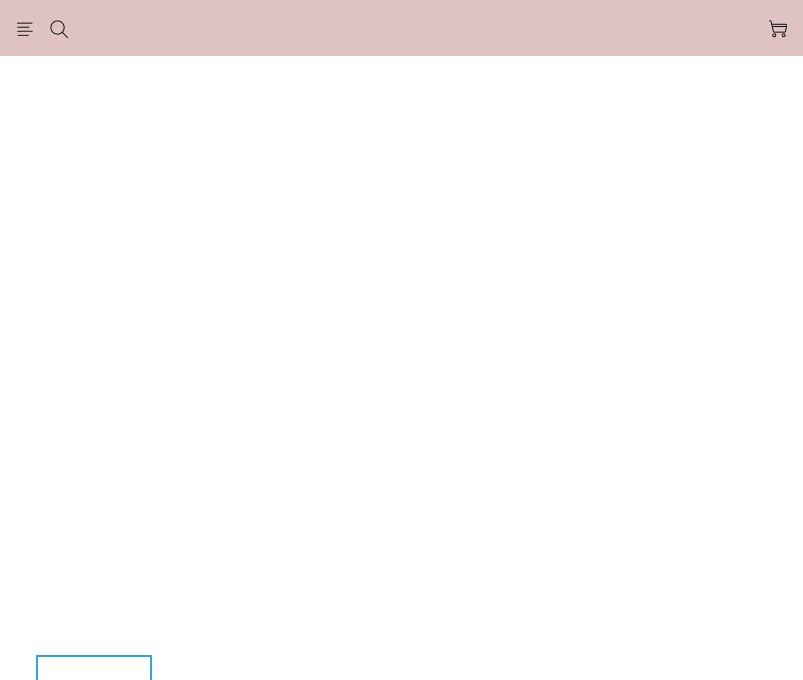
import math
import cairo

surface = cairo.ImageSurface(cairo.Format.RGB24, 803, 680)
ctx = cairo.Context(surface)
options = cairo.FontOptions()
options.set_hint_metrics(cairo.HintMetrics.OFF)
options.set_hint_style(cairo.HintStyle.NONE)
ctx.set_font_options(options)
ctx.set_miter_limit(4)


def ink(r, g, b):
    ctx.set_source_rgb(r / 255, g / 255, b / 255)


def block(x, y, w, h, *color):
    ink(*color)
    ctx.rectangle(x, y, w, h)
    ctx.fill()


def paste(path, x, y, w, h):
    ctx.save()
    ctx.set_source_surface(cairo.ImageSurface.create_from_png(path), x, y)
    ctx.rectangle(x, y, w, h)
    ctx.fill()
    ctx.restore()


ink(255, 255, 255)
ctx.paint()
block(0, 0, 803, 56, 223, 194, 195)
paste("pic1.png", 16, 22, 17, 14)
paste("pic2.png", 50, 20, 18, 18)
paste("pic3.png", 769, 20, 18, 18)
ctx.rectangle(37, 656, 114, 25)
ink(48, 164, 225)
ctx.stroke()
surface.write_to_png("screenshot.png")
